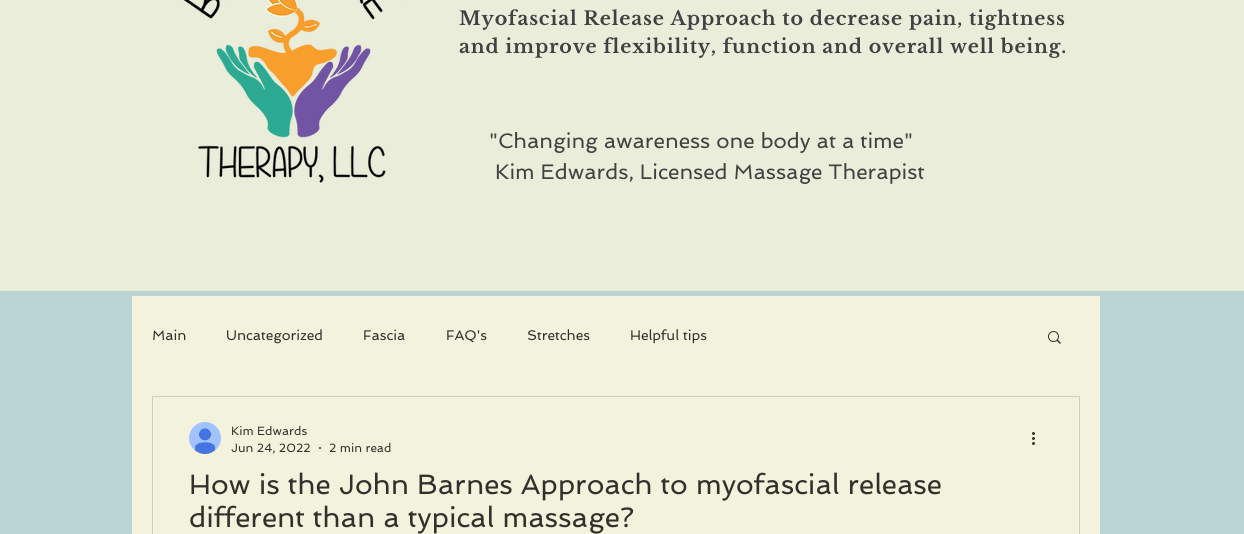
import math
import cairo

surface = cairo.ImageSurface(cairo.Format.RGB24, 1244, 534)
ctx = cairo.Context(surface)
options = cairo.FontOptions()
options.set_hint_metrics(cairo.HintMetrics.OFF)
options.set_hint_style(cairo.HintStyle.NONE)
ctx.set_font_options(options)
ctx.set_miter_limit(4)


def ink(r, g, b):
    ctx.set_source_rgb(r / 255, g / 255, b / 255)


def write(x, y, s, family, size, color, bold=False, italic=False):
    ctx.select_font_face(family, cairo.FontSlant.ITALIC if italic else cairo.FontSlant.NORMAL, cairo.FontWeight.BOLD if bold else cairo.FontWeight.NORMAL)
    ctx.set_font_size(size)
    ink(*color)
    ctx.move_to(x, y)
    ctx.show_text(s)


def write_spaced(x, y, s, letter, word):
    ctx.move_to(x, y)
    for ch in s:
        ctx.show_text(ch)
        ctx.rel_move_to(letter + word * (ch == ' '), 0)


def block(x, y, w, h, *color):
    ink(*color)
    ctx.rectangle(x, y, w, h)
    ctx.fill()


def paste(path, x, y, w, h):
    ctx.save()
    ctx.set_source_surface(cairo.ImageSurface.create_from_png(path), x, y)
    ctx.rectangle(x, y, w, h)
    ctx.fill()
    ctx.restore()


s1 = dict(family="Spinnaker", size=21, color=(65, 65, 65))
s2 = dict(family="Spinnaker", size=14, color=(49, 48, 44))
s3 = dict(family="Spinnaker", size=12, color=(49, 48, 44))
s4 = dict(family="Spinnaker", size=28, color=(49, 48, 44))

ink(186, 212, 212)
ctx.paint()
block(0, 0, 1244, 291, 233, 237, 218)
paste("pic1.png", 183, 0, 218, 183)
ctx.select_font_face("Libre Baskerville", cairo.FontSlant.NORMAL, cairo.FontWeight.BOLD)
ctx.set_font_size(19)
ink(65, 65, 65)
write_spaced(459, 25, "Myofascial Release Approach to decrease pain, tightness", 0.85, 0)
write_spaced(459, 53, "and improve flexibility, function and overall well being.", 0.85, 0)
write(489, 148, "\"Changing awareness one body at a time\"", **s1)
write(495, 179, "Kim Edwards, Licensed Massage Therapist", **s1)
block(132, 296, 968, 238, 243, 242, 220)
write(152, 340, "Main", **s2)
write(226, 340, "Uncategorized", **s2)
write(363, 340, "Fascia", **s2)
write(446, 340, "FAQ's", **s2)
write(527, 340, "Stretches", **s2)
write(630, 340, "Helpful tips", **s2)
paste("pic2.png", 1048, 331, 13, 13)
ctx.rectangle(152.5, 396.5, 927, 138)
ink(206, 206, 187)
ctx.set_line_width(1)
ctx.stroke()
paste("pic3.png", 189, 422, 32, 32)
write(231, 435, "Kim Edwards", **s3)
write(231, 452, "Jun 24, 2022", **s3)
ctx.new_path()
ctx.arc(320, 448, 1, 0, 2 * math.pi)
ctx.fill()
write(329, 452, "2 min read", **s3)
paste("pic4.png", 1032, 432, 3, 13)
write(189, 494, "How is the John Barnes Approach to myofascial release", **s4)
write(189, 527, "different than a typical massage?", **s4)
surface.write_to_png("screenshot.png")
